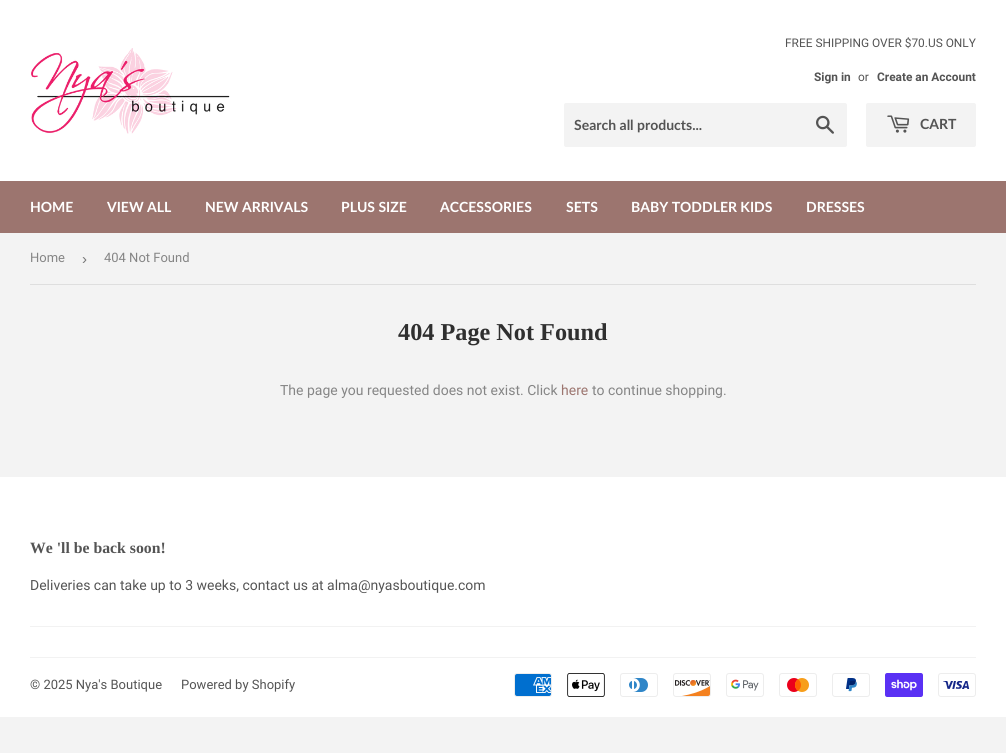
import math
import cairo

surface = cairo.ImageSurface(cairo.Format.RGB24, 1006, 753)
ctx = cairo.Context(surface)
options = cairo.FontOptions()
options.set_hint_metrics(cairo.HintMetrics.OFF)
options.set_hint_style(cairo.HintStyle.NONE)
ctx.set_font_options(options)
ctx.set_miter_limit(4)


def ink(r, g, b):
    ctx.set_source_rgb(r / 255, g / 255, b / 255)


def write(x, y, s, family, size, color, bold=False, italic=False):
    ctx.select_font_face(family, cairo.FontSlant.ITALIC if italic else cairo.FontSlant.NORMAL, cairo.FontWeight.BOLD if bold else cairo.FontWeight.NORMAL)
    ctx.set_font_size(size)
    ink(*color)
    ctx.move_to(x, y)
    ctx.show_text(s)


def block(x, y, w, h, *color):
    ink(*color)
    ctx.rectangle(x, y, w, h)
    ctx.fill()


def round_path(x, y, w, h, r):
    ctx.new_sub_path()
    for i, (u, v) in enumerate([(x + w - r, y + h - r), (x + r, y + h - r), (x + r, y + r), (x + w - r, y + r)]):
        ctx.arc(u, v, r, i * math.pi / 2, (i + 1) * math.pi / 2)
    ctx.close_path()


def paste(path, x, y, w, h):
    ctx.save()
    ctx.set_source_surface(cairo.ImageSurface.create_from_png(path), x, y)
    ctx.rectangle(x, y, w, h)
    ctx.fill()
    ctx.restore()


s1 = dict(family="Roboto", size=11.9, color=(84, 84, 84))
s2 = dict(family="Roboto", size=11.9, color=(84, 84, 84), bold=True)
s3 = dict(family="Lato", size=14, color=(84, 84, 84), bold=True)
s4 = dict(family="Lato", size=14, color=(255, 255, 255), bold=True)
s5 = dict(family="Roboto", size=13, color=(133, 133, 133))
s6 = dict(family="Liberation Sans", size=15, color=(118, 118, 118))
s7 = dict(family="Liberation Serif", size=24.25, color=(47, 47, 47), bold=True)
s8 = dict(family="Roboto", size=14, color=(133, 133, 133))
s9 = dict(family="Roboto", size=14, color=(156, 117, 111))
s10 = dict(family="Liberation Serif", size=15.75, color=(84, 84, 84), bold=True)
s11 = dict(family="Roboto", size=14, color=(84, 84, 84))
s12 = dict(family="Roboto", size=13, color=(84, 84, 84))

ink(243, 243, 243)
ctx.paint()
block(0, 0, 1006, 181, 255, 255, 255)
paste("pic1.png", 31, 48, 199, 86)
write(785, 47, "FREE SHIPPING OVER $70.US ONLY", **s1)
write(814, 81, "Sign in", **s2)
write(858, 81, "or", **s1)
write(877, 81, "Create an Account", **s2)
ink(243, 243, 243)
round_path(564, 103, 283, 44, 2)
ctx.fill()
write(574, 130, "Search all products...", **s3)
paste("pic2.png", 816, 115, 18, 19)
ink(243, 243, 243)
round_path(866, 103, 110, 44, 2)
ctx.fill()
paste("pic3.png", 887, 115, 23, 18)
write(920, 129, "CART", **s3)
block(0, 181, 1006, 52, 156, 117, 111)
write(30, 212, "HOME", **s4)
write(107, 212, "VIEW ALL", **s4)
write(205, 212, "NEW ARRIVALS", **s4)
write(341, 212, "PLUS SIZE", **s4)
write(440, 212, "ACCESSORIES", **s4)
write(566, 212, "SETS", **s4)
write(631, 212, "BABY TODDLER KIDS", **s4)
write(806, 212, "DRESSES", **s4)
block(30, 284, 946, 1, 222, 222, 222)
write(30, 262, "Home", **s5)
write(82, 264, "›", **s6)
write(104, 262, "404 Not Found", **s5)
write(398, 340, "404 Page Not Found", **s7)
write(280, 395, "The page you requested does not exist. Click", **s8)
write(561, 395, "here", **s9)
write(592, 395, "to continue shopping.", **s8)
block(0, 477, 1006, 240, 255, 255, 255)
write(30, 553, "We 'll be back soon!", **s10)
write(30, 590, "Deliveries can take up to 3 weeks, contact us at alma@nyasboutique.com", **s11)
block(30, 626, 946, 1, 242, 242, 242)
block(30, 657, 946, 1, 242, 242, 242)
write(30, 689, "© 2025 Nya's Boutique", **s12)
write(181, 689, "Powered by Shopify", **s12)
paste("pic4.png", 514, 673, 38, 24)
paste("pic5.png", 567, 673, 38, 24)
paste("pic6.png", 620, 673, 38, 24)
paste("pic7.png", 673, 673, 38, 24)
paste("pic8.png", 726, 673, 38, 24)
paste("pic9.png", 779, 673, 38, 24)
paste("pic10.png", 832, 673, 38, 24)
paste("pic11.png", 885, 673, 38, 24)
paste("pic12.png", 938, 673, 38, 24)
surface.write_to_png("screenshot.png")
